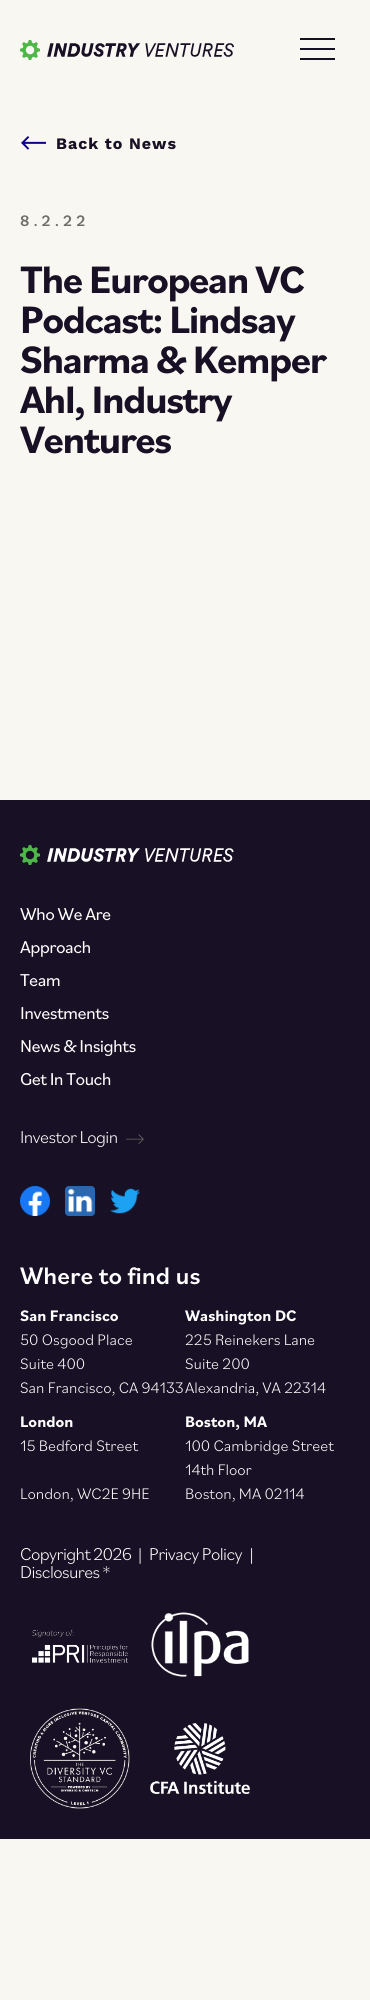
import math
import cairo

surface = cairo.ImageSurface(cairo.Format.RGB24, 370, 2000)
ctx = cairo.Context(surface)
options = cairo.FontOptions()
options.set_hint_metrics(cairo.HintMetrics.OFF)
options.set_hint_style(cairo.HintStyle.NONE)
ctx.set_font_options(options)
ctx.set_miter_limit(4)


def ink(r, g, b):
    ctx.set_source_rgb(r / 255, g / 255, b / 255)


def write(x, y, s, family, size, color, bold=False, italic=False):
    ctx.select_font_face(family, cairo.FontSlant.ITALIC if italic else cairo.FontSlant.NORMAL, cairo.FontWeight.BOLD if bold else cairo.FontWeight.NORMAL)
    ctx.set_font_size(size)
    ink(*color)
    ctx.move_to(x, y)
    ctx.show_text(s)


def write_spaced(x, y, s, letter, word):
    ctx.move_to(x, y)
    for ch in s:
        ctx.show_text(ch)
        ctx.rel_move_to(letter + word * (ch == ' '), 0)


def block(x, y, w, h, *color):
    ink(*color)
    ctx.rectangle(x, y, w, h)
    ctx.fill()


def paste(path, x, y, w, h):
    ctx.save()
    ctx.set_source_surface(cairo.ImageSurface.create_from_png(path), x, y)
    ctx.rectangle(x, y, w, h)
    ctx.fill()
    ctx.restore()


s1 = dict(family="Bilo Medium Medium", size=25, color=(255, 255, 255))
s2 = dict(family="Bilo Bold", size=16, color=(255, 255, 255), bold=True)
s3 = dict(family="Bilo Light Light", size=16, color=(255, 255, 255))

ink(249, 247, 242)
ctx.paint()
paste("pic1.png", 20, 40, 214, 20)
block(300, 38, 35, 2, 24, 16, 36)
block(300, 48, 35, 2, 24, 16, 36)
block(300, 58, 35, 2, 24, 16, 36)
paste("pic2.png", 21, 136, 25, 14)
ctx.select_font_face("Work Sans", cairo.FontSlant.NORMAL, cairo.FontWeight.BOLD)
ctx.set_font_size(16)
write_spaced(56, 149, "Back to News", 1, 0)
ctx.select_font_face("Bilo Medium Medium")
ink(110, 109, 105)
write_spaced(20, 226, "8.2.22", 4, 0)
ctx.select_font_face("Bilo Bold", cairo.FontSlant.NORMAL, cairo.FontWeight.BOLD)
ctx.set_font_size(40)
ink(24, 16, 36)
write_spaced(20, 293, "The European VC", -1.5, 0)
write_spaced(20, 333, "Podcast: Lindsay", -1.5, 0)
write_spaced(20, 373, "Sharma & Kemper", -1.5, 0)
write_spaced(20, 413, "Ahl, Industry", -1.5, 0)
write_spaced(20, 453, "Ventures", -1.5, 0)
block(0, 800, 370, 1039, 24, 16, 36)
paste("pic3.png", 20, 845, 214, 20)
ctx.select_font_face("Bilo")
ctx.set_font_size(18)
ink(255, 255, 255)
write_spaced(20, 920, "Who We Are", -0.6, 0)
write_spaced(20, 953, "Approach", -0.6, 0)
write_spaced(20, 986, "Team", -0.6, 0)
write_spaced(20, 1019, "Investments", -0.6, 0)
write_spaced(20, 1052, "News & Insights", -0.6, 0)
write_spaced(20, 1085, "Get In Touch", -0.6, 0)
ctx.select_font_face("Bilo Light Light")
write_spaced(20, 1143, "Investor Login", -0.6, 0)
paste("pic4.png", 126, 1134, 18, 10)
paste("pic5.png", 20, 1186, 30, 30)
paste("pic6.png", 65, 1186, 30, 30)
paste("pic7.png", 110, 1188, 30, 26)
write(20, 1284, "Where to find us", **s1)
write(20, 1321, "San Francisco", **s2)
write(20, 1345, "50 Osgood Place", **s3)
write(20, 1369, "Suite 400", **s3)
write(20, 1393, "San Francisco, CA 94133", **s3)
write(185, 1321, "Washington DC", **s2)
write(185, 1345, "225 Reinekers Lane", **s3)
write(185, 1369, "Suite 200", **s3)
write(185, 1393, "Alexandria, VA 22314", **s3)
write(20, 1427, "London", **s2)
write(20, 1451, "15 Bedford Street", **s3)
write(20, 1499, "London, WC2E 9HE", **s3)
write(185, 1427, "Boston, MA", **s2)
write(185, 1451, "100 Cambridge Street", **s3)
write(185, 1475, "14th Floor", **s3)
write(185, 1499, "Boston, MA 02114", **s3)
ctx.set_font_size(18)
write_spaced(20, 1560, "Copyright 2026  |", -0.6, 0)
write_spaced(149, 1560, "Privacy Policy", -0.6, 0)
write_spaced(249, 1560, "|", -0.6, 0)
write_spaced(20, 1578, "Disclosures *", -0.6, 0)
paste("pic8.png", 32, 1629, 96, 34)
paste("pic9.png", 151, 1612, 98, 65)
paste("pic10.png", 30, 1708, 100, 101)
paste("pic11.png", 150, 1723, 100, 71)
surface.write_to_png("screenshot.png")
